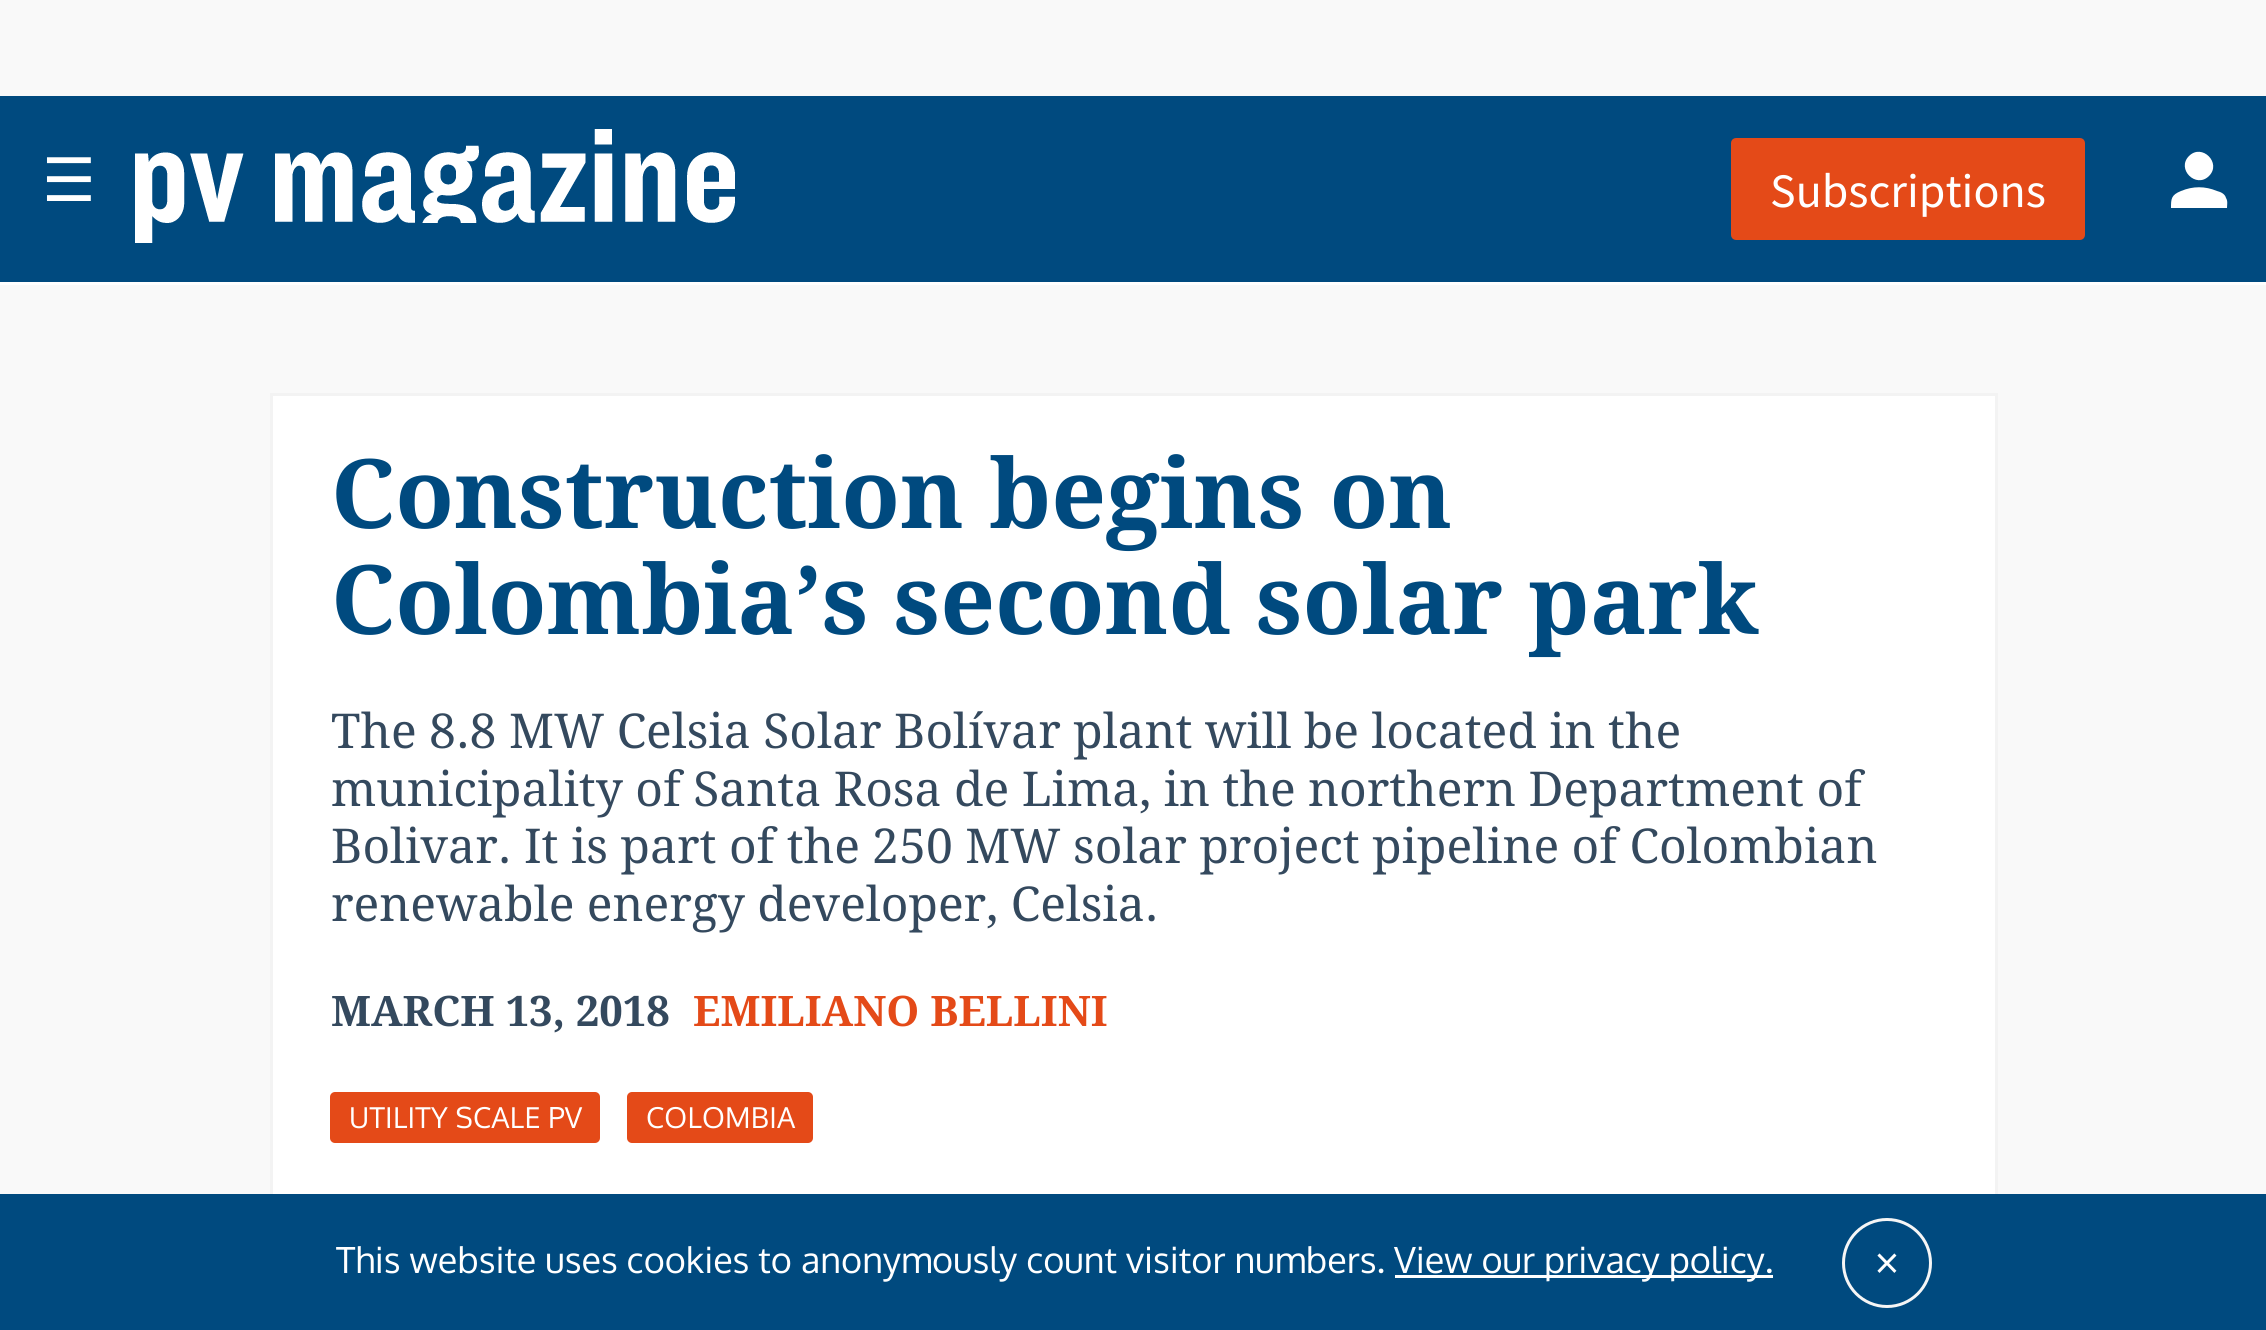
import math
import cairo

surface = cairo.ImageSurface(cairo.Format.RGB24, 2266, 1330)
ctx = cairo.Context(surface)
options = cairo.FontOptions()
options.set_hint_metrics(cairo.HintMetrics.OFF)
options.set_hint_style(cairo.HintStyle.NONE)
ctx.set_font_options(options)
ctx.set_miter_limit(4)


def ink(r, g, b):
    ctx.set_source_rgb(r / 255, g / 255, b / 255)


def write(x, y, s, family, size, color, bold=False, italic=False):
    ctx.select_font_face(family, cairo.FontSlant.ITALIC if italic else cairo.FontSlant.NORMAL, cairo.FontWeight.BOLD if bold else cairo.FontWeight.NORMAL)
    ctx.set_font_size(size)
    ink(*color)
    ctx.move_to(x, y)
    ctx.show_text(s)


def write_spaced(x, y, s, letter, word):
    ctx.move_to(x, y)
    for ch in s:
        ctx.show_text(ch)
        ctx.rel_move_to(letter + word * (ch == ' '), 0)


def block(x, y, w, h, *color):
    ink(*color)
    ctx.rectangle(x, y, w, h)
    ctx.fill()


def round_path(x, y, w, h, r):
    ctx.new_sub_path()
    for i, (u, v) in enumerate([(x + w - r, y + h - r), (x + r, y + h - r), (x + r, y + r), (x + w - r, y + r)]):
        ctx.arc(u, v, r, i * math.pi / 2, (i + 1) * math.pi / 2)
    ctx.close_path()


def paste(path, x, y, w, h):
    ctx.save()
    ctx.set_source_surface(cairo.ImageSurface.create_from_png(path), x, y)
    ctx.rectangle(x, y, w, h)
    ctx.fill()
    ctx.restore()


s1 = dict(family="DejaVu Sans", size=60, color=(255, 255, 255))
s2 = dict(family="Source Sans Pro", size=48, color=(255, 255, 255))
s3 = dict(family="Droid Serif", size=96, color=(0, 74, 127), bold=True)
s4 = dict(family="Droid Serif", size=48, color=(52, 73, 94))
s5 = dict(family="Droid Serif", size=42, color=(52, 73, 94), bold=True)
s6 = dict(family="Droid Serif", size=42, color=(228, 74, 24), bold=True)
s7 = dict(family="Oxygen", size=36, color=(255, 255, 255))

ink(249, 249, 249)
ctx.paint()
block(0, 96, 2266, 186, 0, 74, 127)
block(0, 282, 2266, 3, 255, 255, 255)
write(42, 201, "☰", **s1)
paste("pic1.png", 135, 129, 600, 114)
ink(228, 74, 24)
round_path(1732.5, 139.5, 351, 99, 3.5)
ctx.fill_preserve()
ctx.set_line_width(3)
ctx.stroke()
write(1770, 207, "Subscriptions", **s2)
ctx.new_path()
ctx.move_to(2181, 191)
ctx.curve_to(2193, 186, 2205, 186, 2217, 191)
ctx.curve_to(2221, 192, 2225, 194, 2226, 198)
ctx.curve_to(2228, 201, 2227, 205, 2227, 208)
ctx.line_to(2171, 208)
ctx.curve_to(2171, 199, 2171, 195, 2181, 191)
ctx.close_path()
ctx.move_to(2209, 176)
ctx.curve_to(2196, 189, 2176, 169, 2189, 156)
ctx.curve_to(2202, 143, 2222, 163, 2209, 176)
ctx.close_path()
ctx.fill()
block(273, 396, 1722, 798, 255, 255, 255)
ctx.rectangle(271.5, 394.5, 1725, 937)
ink(243, 243, 243)
ctx.stroke()
write(331, 528, "Construction begins on", **s3)
write(331, 634, "Colombia’s second solar park", **s3)
write(331, 748, "The 8.8 MW Celsia Solar Bolívar plant will be located in the", **s4)
write(331, 806, "municipality of Santa Rosa de Lima, in the northern Department of", **s4)
write(331, 863, "Bolivar. It is part of the 250 MW solar project pipeline of Colombian", **s4)
write(331, 921, "renewable energy developer, Celsia.", **s4)
write(331, 1026, "MARCH 13, 2018", **s5)
write(693, 1026, "EMILIANO BELLINI", **s6)
round_path(330, 1092, 270, 51, 5)
ctx.fill()
ctx.select_font_face("Oxygen")
ctx.set_font_size(28.75)
ink(255, 255, 255)
write_spaced(349, 1128, "UTILITY SCALE PV", 0.25, 0)
ink(228, 74, 24)
round_path(627, 1092, 186, 51, 5)
ctx.fill()
ink(255, 255, 255)
write_spaced(646, 1128, "COLOMBIA", 0.25, 0)
block(0, 1194, 2266, 136, 0, 74, 127)
write(336, 1273, "This website uses cookies to anonymously count visitor numbers.", **s7)
block(1395, 1275, 378, 3, 255, 255, 255)
write(1394, 1273, "View our privacy policy.", **s7)
ctx.new_path()
ctx.arc(1887, 1263, 43.5, 0, 2 * math.pi)
ink(246, 246, 246)
ctx.stroke()
write(1875, 1279, "×", **s2)
surface.write_to_png("screenshot.png")
